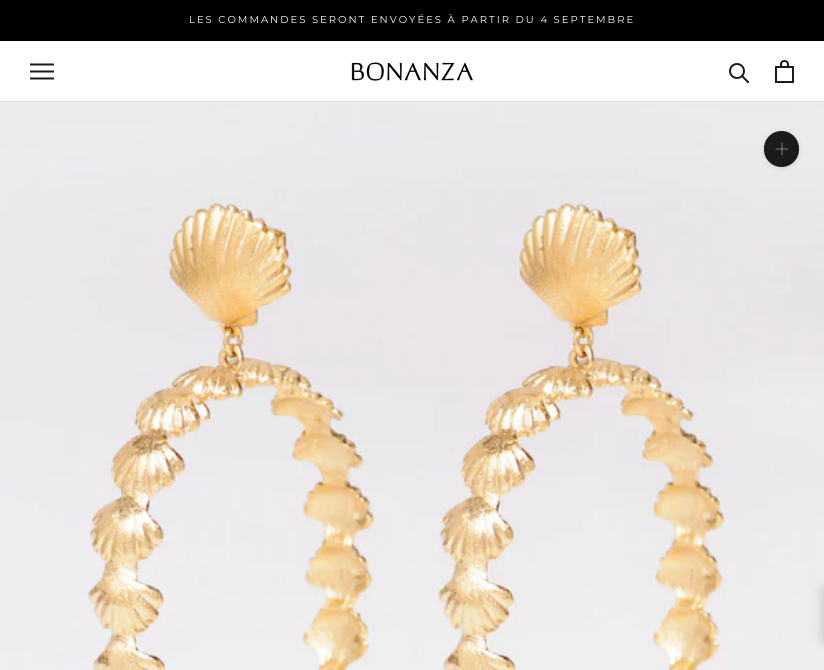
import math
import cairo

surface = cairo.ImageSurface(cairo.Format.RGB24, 824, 670)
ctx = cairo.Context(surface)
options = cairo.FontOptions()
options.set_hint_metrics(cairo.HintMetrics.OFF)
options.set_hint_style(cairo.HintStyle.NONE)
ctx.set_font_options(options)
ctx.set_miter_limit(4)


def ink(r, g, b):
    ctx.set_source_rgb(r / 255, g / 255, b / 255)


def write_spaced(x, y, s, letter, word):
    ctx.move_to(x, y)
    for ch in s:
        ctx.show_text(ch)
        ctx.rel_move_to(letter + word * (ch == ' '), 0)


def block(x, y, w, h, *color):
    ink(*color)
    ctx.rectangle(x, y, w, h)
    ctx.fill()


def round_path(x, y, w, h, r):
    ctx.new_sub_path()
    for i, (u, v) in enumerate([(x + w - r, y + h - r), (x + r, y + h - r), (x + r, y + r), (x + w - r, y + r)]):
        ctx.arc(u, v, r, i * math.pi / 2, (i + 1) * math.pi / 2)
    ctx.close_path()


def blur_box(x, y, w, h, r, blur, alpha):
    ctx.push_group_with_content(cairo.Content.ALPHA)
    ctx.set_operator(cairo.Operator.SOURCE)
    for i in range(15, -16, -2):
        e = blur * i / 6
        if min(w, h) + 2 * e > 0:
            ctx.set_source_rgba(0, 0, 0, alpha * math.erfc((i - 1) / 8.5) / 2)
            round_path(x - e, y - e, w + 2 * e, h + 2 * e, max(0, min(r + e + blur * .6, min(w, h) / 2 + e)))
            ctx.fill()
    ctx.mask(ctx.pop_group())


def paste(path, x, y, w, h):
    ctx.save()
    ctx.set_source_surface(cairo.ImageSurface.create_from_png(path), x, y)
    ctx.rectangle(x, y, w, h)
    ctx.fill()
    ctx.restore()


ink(255, 255, 255)
ctx.paint()
block(0, 0, 824, 41, 0, 0, 0)
ctx.select_font_face("Montserrat")
ctx.set_font_size(10)
ink(255, 255, 255)
write_spaced(189, 23, "LES COMMANDES SERONT ENVOYÉES À PARTIR DU 4 SEPTEMBRE", 2, 0)
block(0, 101, 824, 1, 221, 221, 221)
paste("pic1.png", 30, 63, 24, 17)
paste("pic2.png", 351, 62, 122, 19)
ctx.new_path()
ctx.move_to(748, 82)
ctx.line_to(742.5, 76.5)
ink(28, 27, 27)
ctx.set_line_cap(cairo.LineCap.SQUARE)
ctx.stroke()
ctx.arc(737, 71, 7, 0, 2 * math.pi)
ctx.set_line_cap(cairo.LineCap.BUTT)
ctx.stroke()
paste("pic3.png", 775, 60, 19, 23)
paste("pic4.png", 0, 102, 824, 568)
ink(54, 54, 54)
blur_box(764, 132, 35, 36, 17.5, 2.5, 0.15)
ink(28, 27, 27)
round_path(764, 131, 35, 36, 17.5)
ctx.fill()
ctx.new_path()
ctx.move_to(782, 143)
ctx.line_to(782, 155)
ink(134, 133, 133)
ctx.set_line_width(0.9)
ctx.set_line_cap(cairo.LineCap.SQUARE)
ctx.stroke()
ctx.new_path()
ctx.move_to(776, 149)
ctx.line_to(788, 149)
ctx.set_source_rgba(0.937, 0.937, 0.937, 0.5)
ctx.stroke()
ink(117, 117, 117)
blur_box(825, 590, 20, 50, 0, 7, 0.5)
surface.write_to_png("screenshot.png")
